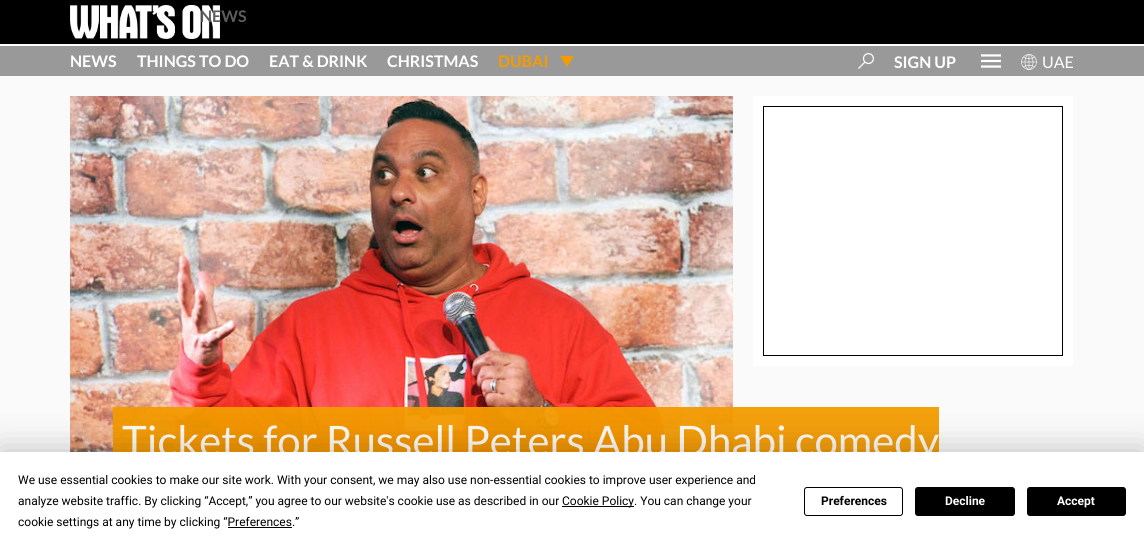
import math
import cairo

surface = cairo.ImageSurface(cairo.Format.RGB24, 1144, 551)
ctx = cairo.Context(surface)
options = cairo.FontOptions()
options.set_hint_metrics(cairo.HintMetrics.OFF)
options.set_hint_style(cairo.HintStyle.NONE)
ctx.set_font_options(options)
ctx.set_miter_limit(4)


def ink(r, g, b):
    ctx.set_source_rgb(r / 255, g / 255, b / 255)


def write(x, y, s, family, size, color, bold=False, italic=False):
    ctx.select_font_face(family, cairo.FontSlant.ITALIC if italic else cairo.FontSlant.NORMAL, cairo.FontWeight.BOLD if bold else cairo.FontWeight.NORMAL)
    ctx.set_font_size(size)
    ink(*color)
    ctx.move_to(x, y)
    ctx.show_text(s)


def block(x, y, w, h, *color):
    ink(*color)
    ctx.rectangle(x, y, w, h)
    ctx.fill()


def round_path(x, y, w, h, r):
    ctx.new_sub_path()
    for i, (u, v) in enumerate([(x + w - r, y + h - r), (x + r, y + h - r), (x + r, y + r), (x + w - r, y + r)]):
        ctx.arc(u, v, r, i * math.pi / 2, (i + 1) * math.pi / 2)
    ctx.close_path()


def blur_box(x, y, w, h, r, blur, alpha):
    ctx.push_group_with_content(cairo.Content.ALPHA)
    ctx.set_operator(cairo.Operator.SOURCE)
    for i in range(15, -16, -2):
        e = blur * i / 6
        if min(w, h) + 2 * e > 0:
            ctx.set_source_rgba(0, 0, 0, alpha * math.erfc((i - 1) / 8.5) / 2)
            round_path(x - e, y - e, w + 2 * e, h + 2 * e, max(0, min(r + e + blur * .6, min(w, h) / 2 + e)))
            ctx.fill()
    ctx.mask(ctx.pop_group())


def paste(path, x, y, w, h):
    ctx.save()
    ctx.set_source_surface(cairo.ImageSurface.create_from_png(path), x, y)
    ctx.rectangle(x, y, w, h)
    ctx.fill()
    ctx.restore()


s1 = dict(family="Lato", size=16, color=(93, 93, 93), bold=True)
s2 = dict(family="Lato", size=16, color=(255, 255, 255), bold=True)
s3 = dict(family="Lato", size=16, color=(244, 155, 0), bold=True)
s4 = dict(family="Lato", size=16, color=(255, 255, 255))
s5 = dict(family="Lato", size=42, color=(254, 250, 243))
s6 = dict(family="Roboto", size=12, color=(0, 0, 0))
s7 = dict(family="Roboto", size=12, color=(0, 0, 0), bold=True)
s8 = dict(family="Roboto", size=12, color=(255, 255, 255), bold=True)

ink(250, 250, 250)
ctx.paint()
block(0, 0, 1144, 44, 0, 0, 0)
paste("pic1.png", 70, 5, 150, 34)
write(200, 22, "NEWS", **s1)
block(0, 44, 1144, 2, 255, 255, 255)
block(0, 46, 1144, 30, 153, 153, 153)
write(70, 67, "NEWS", **s2)
write(137, 67, "THINGS TO DO", **s2)
write(269, 67, "EAT & DRINK", **s2)
write(387, 67, "CHRISTMAS", **s2)
write(498, 67, "DUBAI", **s3)
ctx.new_path()
ctx.move_to(560, 56)
ctx.line_to(574, 56)
ctx.line_to(567, 67)
ctx.close_path()
ctx.fill()
paste("pic2.png", 858, 53, 16, 16)
write(894, 68, "SIGN UP", **s2)
paste("pic3.png", 981, 54, 20, 14)
paste("pic4.png", 1021, 54, 16, 16)
write(1042, 68, "UAE", **s4)
block(753, 96, 320, 270, 255, 255, 255)
ctx.rectangle(763.5, 106.5, 299, 249)
ink(0, 0, 0)
ctx.set_line_width(1)
ctx.stroke()
paste("pic5.png", 70, 96, 663, 356)
ctx.set_source_rgba(0.957, 0.608, 0, 0.95)
ctx.rectangle(113, 407, 826, 45)
ctx.fill()
ctx.rectangle(122, 449, 284, 3)
ctx.fill()
write(122, 456, "Tickets for Russell Peters Abu Dhabi comedy", **s5)
ink(0, 0, 0)
blur_box(0, 452, 1144, 99, 0, 17.5, 0.25)
block(0, 452, 1144, 99, 255, 255, 255)
write(18, 484, "We use essential cookies to make our site work. With your consent, we may also use non-essential cookies to improve user experience and", **s6)
write(18, 505, "analyze website traffic. By clicking “Accept,” you agree to our website's cookie use as described in our", **s6)
block(562, 506, 72, 1, 0, 0, 0)
write(562, 505, "Cookie Policy. You can change your", **s6)
write(18, 526, "cookie settings at any time by clicking “Preferences.”", **s6)
block(228, 527, 64, 1, 0, 0, 0)
round_path(804.5, 487.5, 98, 28, 2.5)
ctx.stroke()
write(821, 505, "Preferences", **s7)
round_path(915.5, 487.5, 99, 28, 2.5)
ctx.fill_preserve()
ctx.stroke()
write(945, 505, "Decline", **s8)
ink(0, 0, 0)
round_path(1027.5, 487.5, 98, 28, 2.5)
ctx.fill_preserve()
ctx.stroke()
write(1057, 505, "Accept", **s8)
surface.write_to_png("screenshot.png")
